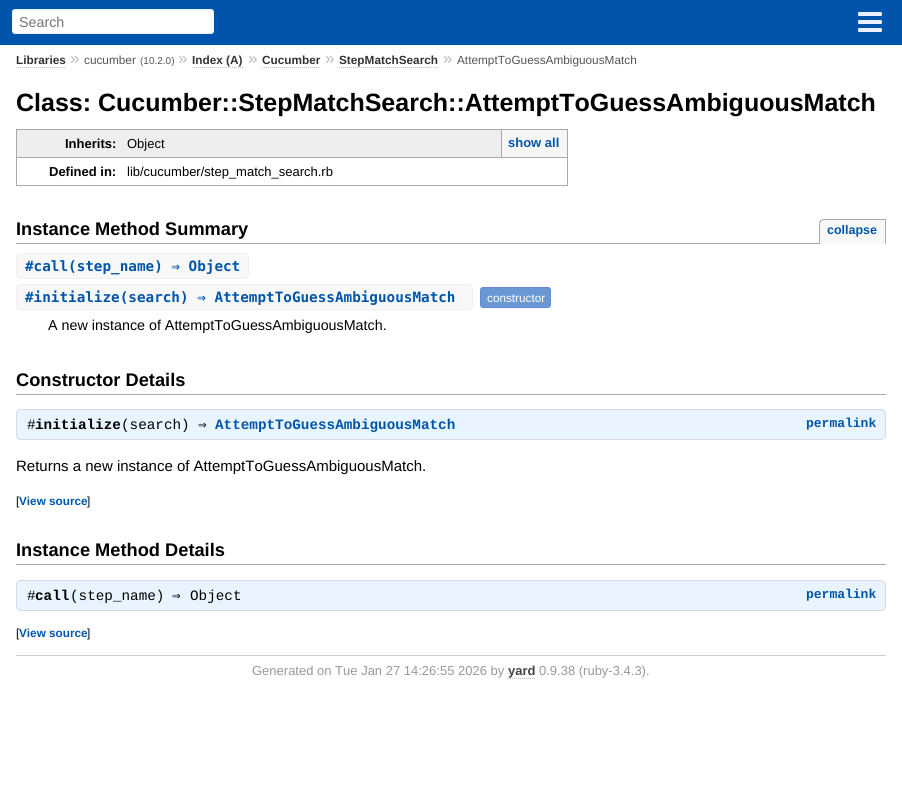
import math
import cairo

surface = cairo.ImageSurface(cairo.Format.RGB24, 902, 785)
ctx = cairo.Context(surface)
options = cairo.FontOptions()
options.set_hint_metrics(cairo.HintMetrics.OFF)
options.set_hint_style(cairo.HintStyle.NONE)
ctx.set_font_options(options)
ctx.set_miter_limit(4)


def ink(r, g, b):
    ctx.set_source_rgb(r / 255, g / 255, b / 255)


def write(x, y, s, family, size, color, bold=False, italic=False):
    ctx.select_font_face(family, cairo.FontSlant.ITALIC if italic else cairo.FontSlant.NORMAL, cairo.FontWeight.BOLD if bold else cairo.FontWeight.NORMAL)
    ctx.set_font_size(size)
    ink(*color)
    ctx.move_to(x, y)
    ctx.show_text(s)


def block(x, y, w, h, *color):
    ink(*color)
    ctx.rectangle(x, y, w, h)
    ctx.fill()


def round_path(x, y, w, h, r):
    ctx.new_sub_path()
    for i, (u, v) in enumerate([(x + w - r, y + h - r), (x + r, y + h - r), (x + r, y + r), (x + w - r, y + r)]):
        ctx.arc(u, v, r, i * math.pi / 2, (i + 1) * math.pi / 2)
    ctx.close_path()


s1 = dict(family="Liberation Sans", size=14.3, color=(117, 117, 117))
s2 = dict(family="Liberation Sans", size=11.8, color=(51, 51, 51), bold=True)
s3 = dict(family="Liberation Sans", size=17, color=(187, 187, 187))
s4 = dict(family="Liberation Sans", size=11.8, color=(85, 85, 85))
s5 = dict(family="Liberation Sans", size=10, color=(85, 85, 85))
s6 = dict(family="Liberation Sans", size=25, color=(0, 0, 0), bold=True)
s7 = dict(family="Liberation Sans", size=13, color=(0, 0, 0), bold=True)
s8 = dict(family="Liberation Sans", size=13, color=(0, 0, 0))
s9 = dict(family="Liberation Sans", size=13, color=(0, 85, 170), bold=True)
s10 = dict(family="Liberation Sans", size=18.25, color=(0, 0, 0), bold=True)
s11 = dict(family="Liberation Sans", size=12.5, color=(0, 85, 170), bold=True)
s12 = dict(family="DejaVu Sans Mono", size=14.3, color=(0, 85, 170), bold=True)
s13 = dict(family="Liberation Sans", size=11.75, color=(255, 255, 255))
s14 = dict(family="Liberation Sans", size=14.3, color=(0, 0, 0))
s15 = dict(family="Liberation Mono", size=14.3, color=(0, 0, 0))
s16 = dict(family="Liberation Mono", size=14.3, color=(0, 0, 0), bold=True)
s17 = dict(family="DejaVu Sans Mono", size=14.3, color=(0, 0, 0))
s18 = dict(family="Liberation Mono", size=14.3, color=(0, 85, 170), bold=True)
s19 = dict(family="Liberation Mono", size=13, color=(0, 85, 170), bold=True)
s20 = dict(family="Liberation Sans", size=15, color=(0, 0, 0))
s21 = dict(family="Liberation Sans", size=11.75, color=(0, 0, 0))
s22 = dict(family="Liberation Sans", size=11.75, color=(0, 85, 170), bold=True)
s23 = dict(family="Liberation Sans", size=13, color=(153, 153, 153))
s24 = dict(family="Liberation Sans", size=13, color=(68, 68, 68), bold=True)

ink(255, 255, 255)
ctx.paint()
block(0, 0, 902, 45, 0, 85, 170)
ink(255, 255, 255)
round_path(12.5, 9.5, 201, 24, 2.5)
ctx.fill_preserve()
ink(234, 240, 255)
ctx.set_line_width(1)
ctx.stroke()
write(19, 27, "Search", **s1)
ink(234, 240, 255)
round_path(858, 12, 24, 4, 1)
ctx.fill()
round_path(858, 20, 24, 4, 1)
ctx.fill()
round_path(858, 28, 24, 4, 1)
ctx.fill()
write(16, 64, "Libraries", **s2)
ctx.new_path()
ctx.move_to(16, 67.5)
ctx.line_to(66, 67.5)
ink(187, 187, 221)
ctx.set_dash([1, 1])
ctx.stroke()
write(70, 64, "»", **s3)
write(84, 64, "cucumber", **s4)
write(140, 64, "(10.2.0)", **s5)
write(178, 64, "»", **s3)
write(192, 64, "Index (A)", **s2)
ctx.new_path()
ctx.move_to(192, 67.5)
ctx.line_to(243, 67.5)
ink(187, 187, 221)
ctx.stroke()
write(248, 64, "»", **s3)
write(262, 64, "Cucumber", **s2)
ctx.new_path()
ctx.move_to(262, 67.5)
ctx.line_to(320, 67.5)
ink(187, 187, 221)
ctx.stroke()
write(325, 64, "»", **s3)
write(339, 64, "StepMatchSearch", **s2)
ctx.new_path()
ctx.move_to(339, 67.5)
ctx.line_to(438, 67.5)
ink(187, 187, 221)
ctx.stroke()
write(443, 64, "»", **s3)
write(457, 64, "AttemptToGuessAmbiguousMatch", **s4)
write(16, 111, "Class: Cucumber::StepMatchSearch::AttemptToGuessAmbiguousMatch", **s6)
block(17, 130, 484, 27, 238, 238, 238)
block(16, 129, 552, 1, 170, 170, 170)
block(16, 129, 1, 28, 170, 170, 170)
write(65, 148, "Inherits:", **s7)
block(16, 157, 552, 1, 170, 170, 170)
block(567, 129, 1, 57, 170, 170, 170)
write(127, 148, "Object", **s8)
block(502, 130, 65, 27, 246, 246, 246)
block(501, 130, 1, 27, 170, 170, 170)
write(508, 147, "show all", **s9)
block(16, 185, 111, 1, 170, 170, 170)
block(16, 157, 1, 29, 170, 170, 170)
write(49, 176, "Defined in:", **s7)
block(127, 185, 441, 1, 170, 170, 170)
write(127, 176, "lib/cucumber/step_match_search.rb", **s8)
block(16, 243, 803, 1, 170, 170, 170)
write(16, 235, "Instance Method Summary", **s10)
ink(248, 248, 248)
ctx.new_path()
ctx.move_to(824, 219)
ctx.line_to(886, 219)
ctx.line_to(886, 244)
ctx.line_to(819, 244)
ctx.line_to(819, 224)
ctx.curve_to(819, 221, 821, 219, 824, 219)
ctx.close_path()
ctx.fill()
ink(170, 170, 170)
ctx.set_fill_rule(cairo.FillRule.EVEN_ODD)
ctx.new_path()
ctx.move_to(824, 219)
ctx.line_to(886, 219)
ctx.line_to(886, 244)
ctx.line_to(819, 244)
ctx.line_to(819, 224)
ctx.curve_to(819, 221, 821, 219, 824, 219)
ctx.close_path()
ctx.move_to(824, 220)
ctx.line_to(885, 220)
ctx.line_to(885, 244)
ctx.line_to(820, 244)
ctx.line_to(820, 224)
ctx.curve_to(820, 222, 822, 220, 824, 220)
ctx.close_path()
ctx.fill()
write(827, 234, "collapse", **s11)
ink(248, 248, 248)
ctx.new_path()
ctx.move_to(21, 253)
ctx.line_to(33, 253)
ctx.line_to(33, 279)
ctx.line_to(21, 279)
ctx.curve_to(18, 279, 16, 277, 16, 274)
ctx.line_to(16, 258)
ctx.curve_to(16, 255, 18, 253, 21, 253)
ctx.close_path()
ctx.fill()
ink(240, 240, 240)
ctx.new_path()
ctx.move_to(21, 253)
ctx.line_to(33, 253)
ctx.line_to(33, 279)
ctx.line_to(21, 279)
ctx.curve_to(18, 279, 16, 277, 16, 274)
ctx.line_to(16, 258)
ctx.curve_to(16, 255, 18, 253, 21, 253)
ctx.close_path()
ctx.move_to(21, 254)
ctx.line_to(33, 254)
ctx.line_to(33, 278)
ctx.line_to(21, 278)
ctx.curve_to(19, 278, 17, 276, 17, 274)
ctx.line_to(17, 258)
ctx.curve_to(17, 256, 19, 254, 21, 254)
ctx.close_path()
ctx.fill()
block(33, 254, 35, 24, 248, 248, 248)
ctx.new_path()
ctx.move_to(68, 253)
ctx.line_to(244, 253)
ctx.curve_to(247, 253, 249, 255, 249, 258)
ctx.line_to(249, 274)
ctx.curve_to(249, 277, 247, 279, 244, 279)
ctx.line_to(68, 279)
ctx.close_path()
ctx.fill()
ink(240, 240, 240)
ctx.new_path()
ctx.move_to(68, 253)
ctx.line_to(244, 253)
ctx.curve_to(247, 253, 249, 255, 249, 258)
ctx.line_to(249, 274)
ctx.curve_to(249, 277, 247, 279, 244, 279)
ctx.line_to(68, 279)
ctx.close_path()
ctx.move_to(68, 254)
ctx.line_to(244, 254)
ctx.curve_to(246, 254, 248, 256, 248, 258)
ctx.line_to(248, 274)
ctx.curve_to(248, 276, 246, 278, 244, 278)
ctx.line_to(68, 278)
ctx.close_path()
ctx.fill()
write(25, 271, "#call(step_name) ⇒ Object", **s12)
block(33, 253, 35, 1, 240, 240, 240)
block(33, 278, 35, 1, 240, 240, 240)
ink(248, 248, 248)
ctx.new_path()
ctx.move_to(21, 284)
ctx.line_to(33, 284)
ctx.line_to(33, 310)
ctx.line_to(21, 310)
ctx.curve_to(18, 310, 16, 308, 16, 305)
ctx.line_to(16, 289)
ctx.curve_to(16, 286, 18, 284, 21, 284)
ctx.close_path()
ctx.fill()
ink(240, 240, 240)
ctx.new_path()
ctx.move_to(21, 284)
ctx.line_to(33, 284)
ctx.line_to(33, 310)
ctx.line_to(21, 310)
ctx.curve_to(18, 310, 16, 308, 16, 305)
ctx.line_to(16, 289)
ctx.curve_to(16, 286, 18, 284, 21, 284)
ctx.close_path()
ctx.move_to(21, 285)
ctx.line_to(33, 285)
ctx.line_to(33, 309)
ctx.line_to(21, 309)
ctx.curve_to(19, 309, 17, 307, 17, 305)
ctx.line_to(17, 289)
ctx.curve_to(17, 287, 19, 285, 21, 285)
ctx.close_path()
ctx.fill()
block(33, 285, 86, 24, 248, 248, 248)
ctx.new_path()
ctx.move_to(119, 284)
ctx.line_to(468, 284)
ctx.curve_to(471, 284, 473, 286, 473, 289)
ctx.line_to(473, 305)
ctx.curve_to(473, 308, 471, 310, 468, 310)
ctx.line_to(119, 310)
ctx.close_path()
ctx.fill()
ink(240, 240, 240)
ctx.new_path()
ctx.move_to(119, 284)
ctx.line_to(468, 284)
ctx.curve_to(471, 284, 473, 286, 473, 289)
ctx.line_to(473, 305)
ctx.curve_to(473, 308, 471, 310, 468, 310)
ctx.line_to(119, 310)
ctx.close_path()
ctx.move_to(119, 285)
ctx.line_to(468, 285)
ctx.curve_to(470, 285, 472, 287, 472, 289)
ctx.line_to(472, 305)
ctx.curve_to(472, 307, 470, 309, 468, 309)
ctx.line_to(119, 309)
ctx.close_path()
ctx.fill()
write(25, 302, "#initialize(search) ⇒ AttemptToGuessAmbiguousMatch", **s12)
block(33, 284, 86, 1, 240, 240, 240)
block(33, 309, 86, 1, 240, 240, 240)
ink(106, 152, 214)
round_path(480.5, 287.5, 70, 20, 2.5)
ctx.fill_preserve()
ink(102, 137, 214)
ctx.set_dash([])
ctx.stroke()
write(487, 302, "constructor", **s13)
write(48, 330, "A new instance of AttemptToGuessAmbiguousMatch.", **s14)
block(16, 394, 870, 1, 170, 170, 170)
write(16, 386, "Constructor Details", **s10)
ink(232, 244, 255)
round_path(16.5, 409.5, 869, 30, 4.5)
ctx.fill_preserve()
ink(216, 216, 229)
ctx.stroke()
write(27, 429, "#", **s15)
write(35, 429, "initialize", **s16)
write(121, 429, "(search)", **s15)
write(198, 429, "⇒", **s17)
write(215, 429, "AttemptToGuessAmbiguousMatch", **s18)
write(806, 427, "permalink", **s19)
write(16, 471, "Returns a new instance of AttemptToGuessAmbiguousMatch.", **s20)
write(16, 505, "[", **s21)
write(19, 505, "View source", **s22)
write(87, 505, "]", **s21)
block(16, 564, 870, 1, 170, 170, 170)
write(16, 556, "Instance Method Details", **s10)
ink(232, 244, 255)
round_path(16.5, 580.5, 869, 30, 4.5)
ctx.fill_preserve()
ink(216, 216, 229)
ctx.stroke()
write(27, 600, "#", **s15)
write(35, 600, "call", **s16)
write(70, 600, "(step_name)", **s15)
write(172, 600, "⇒", **s17)
write(190, 600, "Object", **s15)
write(806, 598, "permalink", **s19)
write(16, 637, "[", **s21)
write(19, 637, "View source", **s22)
write(87, 637, "]", **s21)
block(16, 655, 870, 1, 204, 204, 204)
write(252, 675, "Generated on Tue Jan 27 14:26:55 2026 by", **s23)
write(508, 675, "yard", **s24)
ctx.new_path()
ctx.move_to(508, 678.5)
ctx.line_to(536, 678.5)
ink(187, 187, 221)
ctx.set_dash([1, 1])
ctx.stroke()
write(539, 675, "0.9.38 (ruby-3.4.3).", **s23)
surface.write_to_png("screenshot.png")
